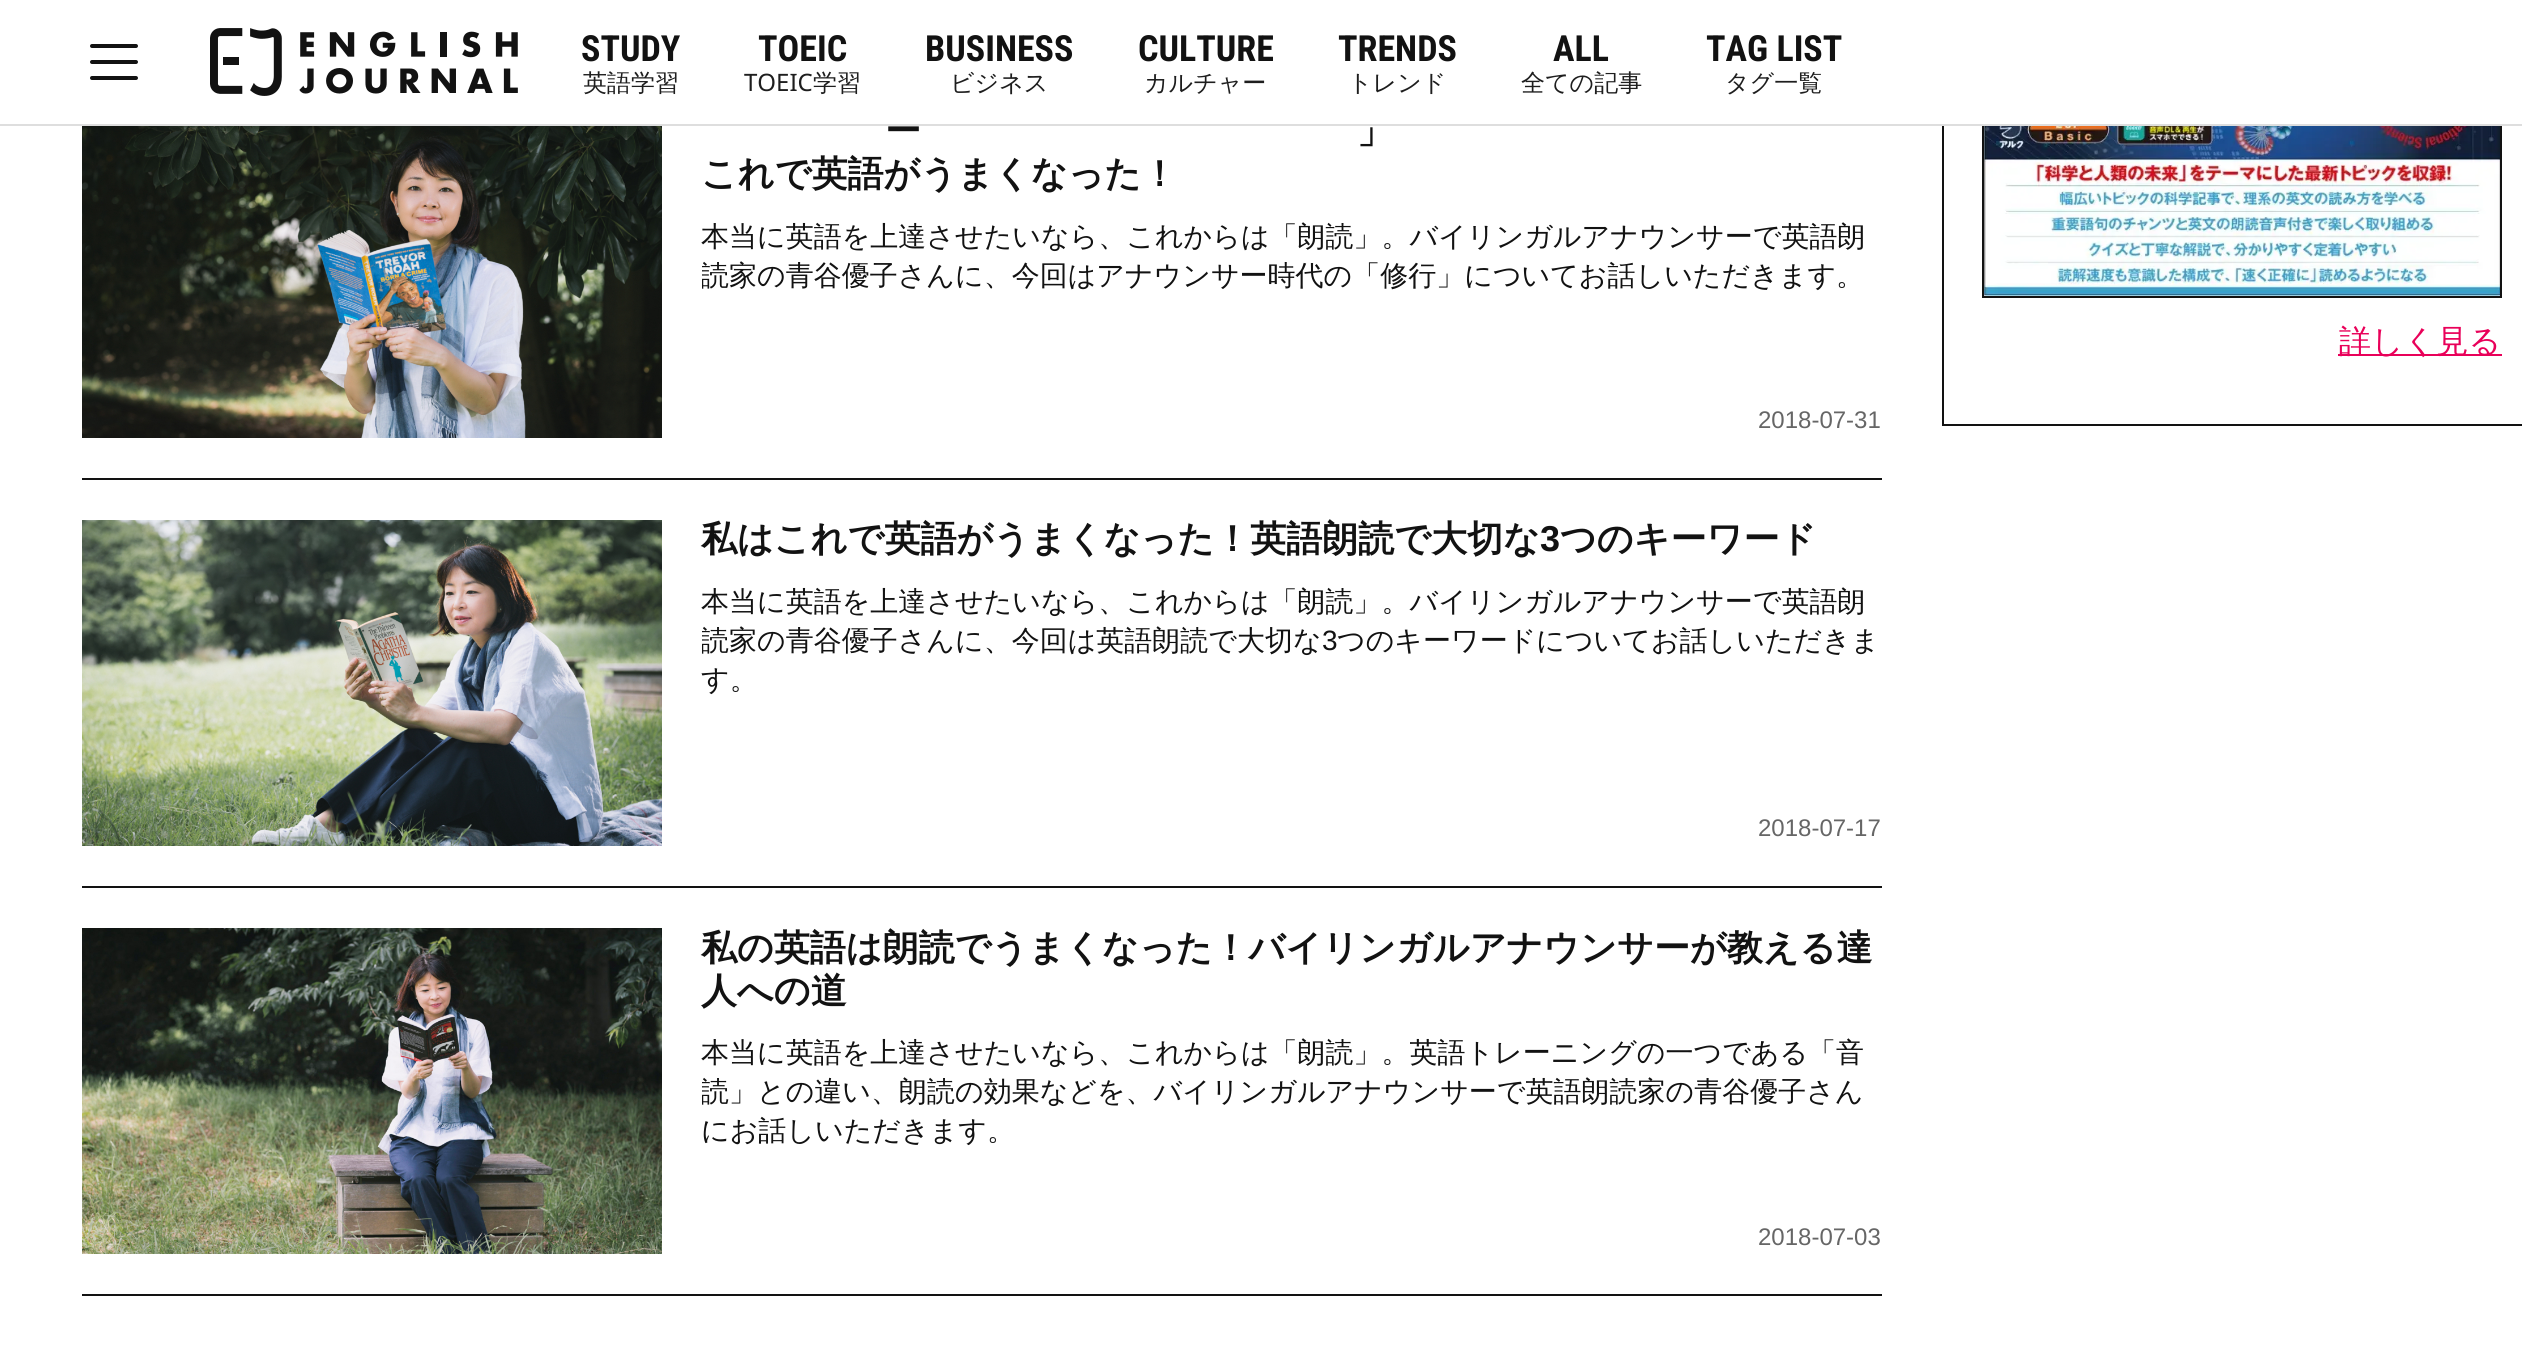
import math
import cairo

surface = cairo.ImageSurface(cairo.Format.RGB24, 2522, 1349)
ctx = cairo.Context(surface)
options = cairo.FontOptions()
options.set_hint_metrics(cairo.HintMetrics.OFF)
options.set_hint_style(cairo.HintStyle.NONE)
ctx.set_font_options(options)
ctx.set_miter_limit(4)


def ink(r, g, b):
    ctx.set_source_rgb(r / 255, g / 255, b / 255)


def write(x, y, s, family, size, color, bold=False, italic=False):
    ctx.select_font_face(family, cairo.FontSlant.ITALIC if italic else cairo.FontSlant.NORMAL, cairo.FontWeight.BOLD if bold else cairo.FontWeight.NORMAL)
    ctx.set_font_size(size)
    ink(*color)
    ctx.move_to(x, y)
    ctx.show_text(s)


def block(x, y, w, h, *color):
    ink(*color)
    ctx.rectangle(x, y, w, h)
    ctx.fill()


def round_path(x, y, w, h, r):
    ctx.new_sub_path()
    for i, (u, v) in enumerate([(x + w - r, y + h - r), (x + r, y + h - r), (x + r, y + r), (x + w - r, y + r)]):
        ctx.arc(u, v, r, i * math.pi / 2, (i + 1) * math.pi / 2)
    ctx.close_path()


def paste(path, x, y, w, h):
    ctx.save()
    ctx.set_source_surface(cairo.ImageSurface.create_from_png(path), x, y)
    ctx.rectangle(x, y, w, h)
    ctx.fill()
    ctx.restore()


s1 = dict(family="Roboto Condensed", size=36, color=(18, 18, 18), bold=True)
s2 = dict(family="WenQuanYi Zen Hei Medium", size=24, color=(30, 30, 30))
s3 = dict(family="Noto Sans", size=24, color=(30, 30, 30))
s4 = dict(family="WenQuanYi Zen Hei", size=36, color=(18, 18, 18), bold=True)
s5 = dict(family="WenQuanYi Zen Hei Medium", size=28, color=(18, 18, 18))
s6 = dict(family="Liberation Sans", size=24, color=(102, 102, 102))
s7 = dict(family="Liberation Sans", size=36, color=(18, 18, 18), bold=True)
s8 = dict(family="Liberation Sans", size=28, color=(18, 18, 18))
s9 = dict(family="WenQuanYi Zen Hei Medium", size=32, color=(233, 0, 89))

ink(255, 255, 255)
ctx.paint()
ctx.rectangle(1943, -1, 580, 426)
ink(18, 18, 18)
ctx.stroke()
ctx.rectangle(1983, -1, 518, 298)
ctx.stroke()
block(1942, 0, 560, 124, 255, 255, 255)
block(0, 124, 2522, 2, 222, 222, 222)
ink(18, 18, 18)
round_path(90, 44, 48, 4, 2)
ctx.fill()
round_path(90, 60, 48, 4, 2)
ctx.fill()
round_path(90, 76, 48, 4, 2)
ctx.fill()
paste("pic1.png", 210, 28, 308, 68)
write(581, 61, "STUDY", **s1)
write(583, 91, "英語学習", **s2)
write(758, 61, "TOEIC", **s1)
write(744, 91, "TOEIC", **s3)
write(813, 91, "学習", **s2)
write(925, 61, "BUSINESS", **s1)
write(950, 91, "ビジネス", **s2)
write(1138, 61, "CULTURE", **s1)
write(1144, 91, "カルチャー", **s2)
write(1338, 61, "TRENDS", **s1)
write(1348, 91, "トレンド", **s2)
write(1553, 61, "ALL", **s1)
write(1521, 91, "全ての記事", **s2)
write(1706, 61, "TAG LIST", **s1)
write(1725, 91, "タグ一覧", **s2)
block(82, 478, 1800, 2, 18, 18, 18)
paste("pic2.png", 82, 126, 580, 312)
write(885, 143, "ー", **s4)
write(1357, 143, "」", **s4)
write(701, 186, "これで英語がうまくなった！", **s4)
write(701, 246, "本当に英語を上達させたいなら、これからは「朗読」。バイリンガルアナウンサーで英語朗", **s5)
ctx.save()
ctx.rectangle(702, 218, 1180, 78)
ctx.clip()
write(701, 285, "読家の青谷優子さんに、今回はアナウンサー時代の「修行」についてお話しいただきます。", **s5)
ctx.restore()
write(1758, 428, "2018-07-31", **s6)
block(82, 886, 1800, 2, 18, 18, 18)
paste("pic3.png", 82, 520, 580, 326)
write(701, 551, "私はこれで英語がうまくなった！英語朗読で大切な", **s4)
write(1540, 551, "3", **s7)
write(1560, 551, "つのキーワード", **s4)
write(701, 611, "本当に英語を上達させたいなら、これからは「朗読」。バイリンガルアナウンサーで英語朗", **s5)
ctx.save()
ctx.rectangle(702, 582, 1180, 118)
ctx.clip()
write(701, 650, "読家の青谷優子さんに、今回は英語朗読で大切な", **s5)
ctx.restore()
write(1322, 650, "3", **s8)
write(1337, 650, "つのキーワードについてお話しいただきま", **s5)
write(701, 689, "す。", **s5)
write(1758, 836, "2018-07-17", **s6)
block(82, 1294, 1800, 2, 18, 18, 18)
paste("pic4.png", 82, 928, 580, 326)
write(701, 960, "私の英語は朗読でうまくなった！バイリンガルアナウンサーが教える達", **s4)
write(701, 1003, "人への道", **s4)
write(701, 1062, "本当に英語を上達させたいなら、これからは「朗読」。英語トレーニングの一つである「音", **s5)
ctx.save()
ctx.rectangle(702, 1034, 1180, 118)
ctx.clip()
write(701, 1101, "読」との違い、朗読の効果などを、バイリンガルアナウンサーで英語朗読家の青谷優子さん", **s5)
ctx.restore()
write(701, 1140, "にお話しいただきます。", **s5)
write(1758, 1245, "2018-07-03", **s6)
paste("pic5.png", 1984, 126, 516, 170)
block(2338, 354, 164, 2, 233, 0, 89)
write(2339, 352, "詳しく見る", **s9)
surface.write_to_png("screenshot.png")
